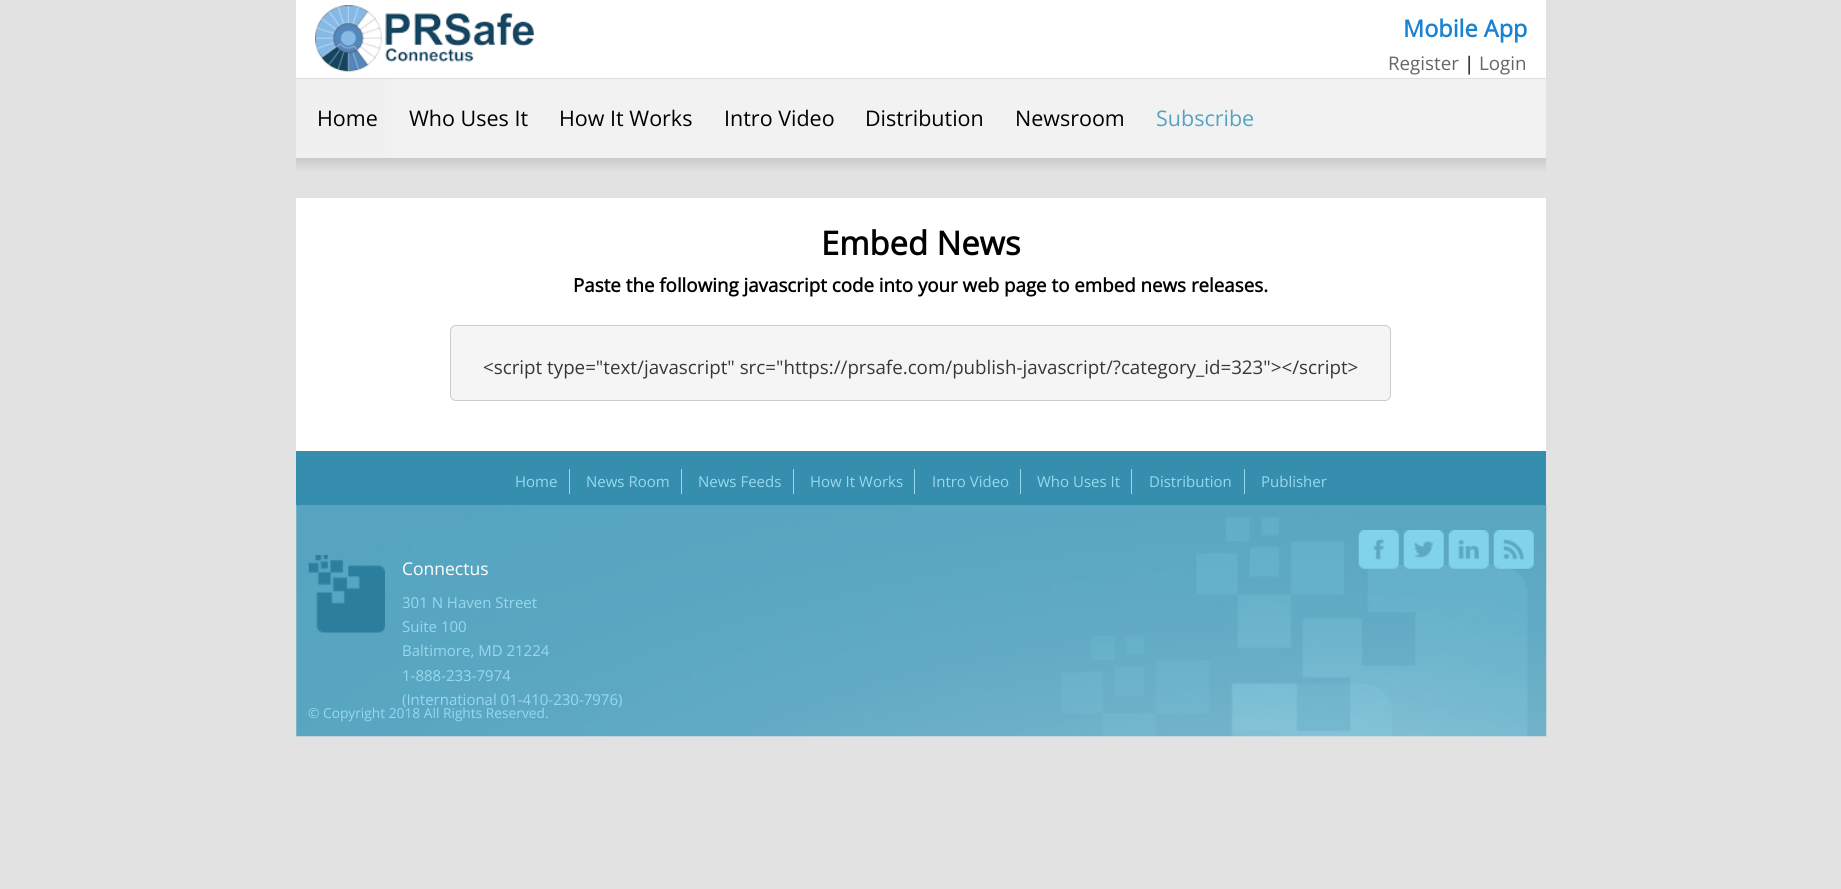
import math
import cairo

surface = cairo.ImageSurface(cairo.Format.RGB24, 1841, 889)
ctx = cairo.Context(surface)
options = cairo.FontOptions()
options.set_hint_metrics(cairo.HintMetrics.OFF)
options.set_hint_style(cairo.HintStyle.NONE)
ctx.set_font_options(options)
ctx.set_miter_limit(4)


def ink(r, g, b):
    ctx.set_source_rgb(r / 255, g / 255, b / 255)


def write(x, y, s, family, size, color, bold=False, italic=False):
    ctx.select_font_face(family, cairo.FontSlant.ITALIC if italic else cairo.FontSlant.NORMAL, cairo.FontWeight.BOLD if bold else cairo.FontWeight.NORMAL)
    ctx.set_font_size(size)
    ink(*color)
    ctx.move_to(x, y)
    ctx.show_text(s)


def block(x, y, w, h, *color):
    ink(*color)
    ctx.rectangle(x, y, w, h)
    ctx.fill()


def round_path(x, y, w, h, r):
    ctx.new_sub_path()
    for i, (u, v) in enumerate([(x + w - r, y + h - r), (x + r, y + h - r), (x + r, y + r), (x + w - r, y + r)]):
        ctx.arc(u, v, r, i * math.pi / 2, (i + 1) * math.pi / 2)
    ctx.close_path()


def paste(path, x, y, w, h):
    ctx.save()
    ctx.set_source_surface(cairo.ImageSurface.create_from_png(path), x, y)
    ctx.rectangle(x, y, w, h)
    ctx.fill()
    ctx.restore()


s1 = dict(family="Open Sans", size=23.5, color=(25, 130, 209), bold=True)
s2 = dict(family="Open Sans", size=18.75, color=(102, 102, 102))
s3 = dict(family="Open Sans", size=18.75, color=(0, 0, 0))
s4 = dict(family="Open Sans", size=21.5, color=(0, 0, 0))
s5 = dict(family="Open Sans", size=21.5, color=(85, 164, 191))
s6 = dict(family="Open Sans", size=32.75, color=(0, 0, 0), bold=True)
s7 = dict(family="Open Sans", size=18.75, color=(0, 0, 0), bold=True)
s8 = dict(family="Open Sans", size=18.75, color=(55, 55, 55))
s9 = dict(family="Open Sans", size=15, color=(151, 216, 238))
s10 = dict(family="Open Sans", size=17.5, color=(255, 255, 255))
s11 = dict(family="Open Sans", size=13.75, color=(151, 216, 238))

ink(226, 226, 226)
ctx.paint()
block(296, 0, 1250, 78, 255, 255, 255)
paste("pic1.png", 315, 5, 219, 67)
write(1403, 37, "Mobile App", **s1)
write(1388, 70, "Register", **s2)
write(1464, 70, "|", **s3)
write(1479, 70, "Login", **s2)
block(391, 79, 1155, 79, 242, 242, 242)
block(296, 78, 1250, 1, 221, 221, 221)
block(296, 79, 95, 79, 240, 240, 240)
write(317, 126, "Home", **s4)
write(409, 126, "Who Uses It", **s4)
write(559, 126, "How It Works", **s4)
write(724, 126, "Intro Video", **s4)
write(865, 126, "Distribution", **s4)
write(1015, 126, "Newsroom", **s4)
write(1156, 126, "Subscribe", **s5)
gradient = cairo.LinearGradient(921, 157, 921, 173)
gradient.add_color_stop_rgba(0, 0.788, 0.788, 0.788, 1)
gradient.add_color_stop_rgba(1, 0.886, 0.886, 0.886, 1)
ctx.set_source(gradient)
ctx.rectangle(296, 158, 1250, 13)
ctx.fill()
block(296, 198, 1250, 253, 255, 255, 255)
write(821, 255, "Embed News", **s6)
write(573, 292, "Paste the following javascript code into your web page to embed news releases.", **s7)
ink(245, 245, 245)
round_path(450.5, 325.5, 940, 75, 5.5)
ctx.fill_preserve()
ink(204, 204, 204)
ctx.set_line_width(1)
ctx.stroke()
write(483, 374, "<script type=\"text/javascript\" src=\"https://prsafe.com/publish-javascript/?category_id=323\"></script>", **s8)
block(296, 451, 1250, 54, 53, 142, 173)
block(569, 469, 1, 25, 151, 216, 238)
write(515, 487, "Home", **s9)
block(681, 469, 1, 25, 151, 216, 238)
write(586, 487, "News Room", **s9)
block(793, 469, 1, 25, 151, 216, 238)
write(698, 487, "News Feeds", **s9)
block(914, 469, 1, 25, 151, 216, 238)
write(810, 487, "How It Works", **s9)
block(1020, 469, 1, 25, 151, 216, 238)
write(932, 487, "Intro Video", **s9)
block(1131, 469, 1, 25, 151, 216, 238)
write(1037, 487, "Who Uses It", **s9)
block(1244, 469, 1, 25, 151, 216, 238)
write(1149, 487, "Distribution", **s9)
write(1261, 487, "Publisher", **s9)
paste("pic2.png", 296, 505, 1251, 232)
paste("pic3.png", 1358, 530, 41, 39)
paste("pic4.png", 1403, 530, 41, 39)
paste("pic5.png", 1448, 530, 41, 39)
paste("pic6.png", 1493, 530, 41, 39)
paste("pic7.png", 308, 555, 77, 78)
write(402, 575, "Connectus", **s10)
write(402, 608, "301 N Haven Street", **s9)
write(402, 632, "Suite 100", **s9)
write(402, 656, "Baltimore, MD 21224", **s9)
write(402, 681, "1-888-233-7974", **s9)
write(402, 705, "(International 01-410-230-7976)", **s9)
write(308, 718, "© Copyright 2018 All Rights Reserved.", **s11)
surface.write_to_png("screenshot.png")
